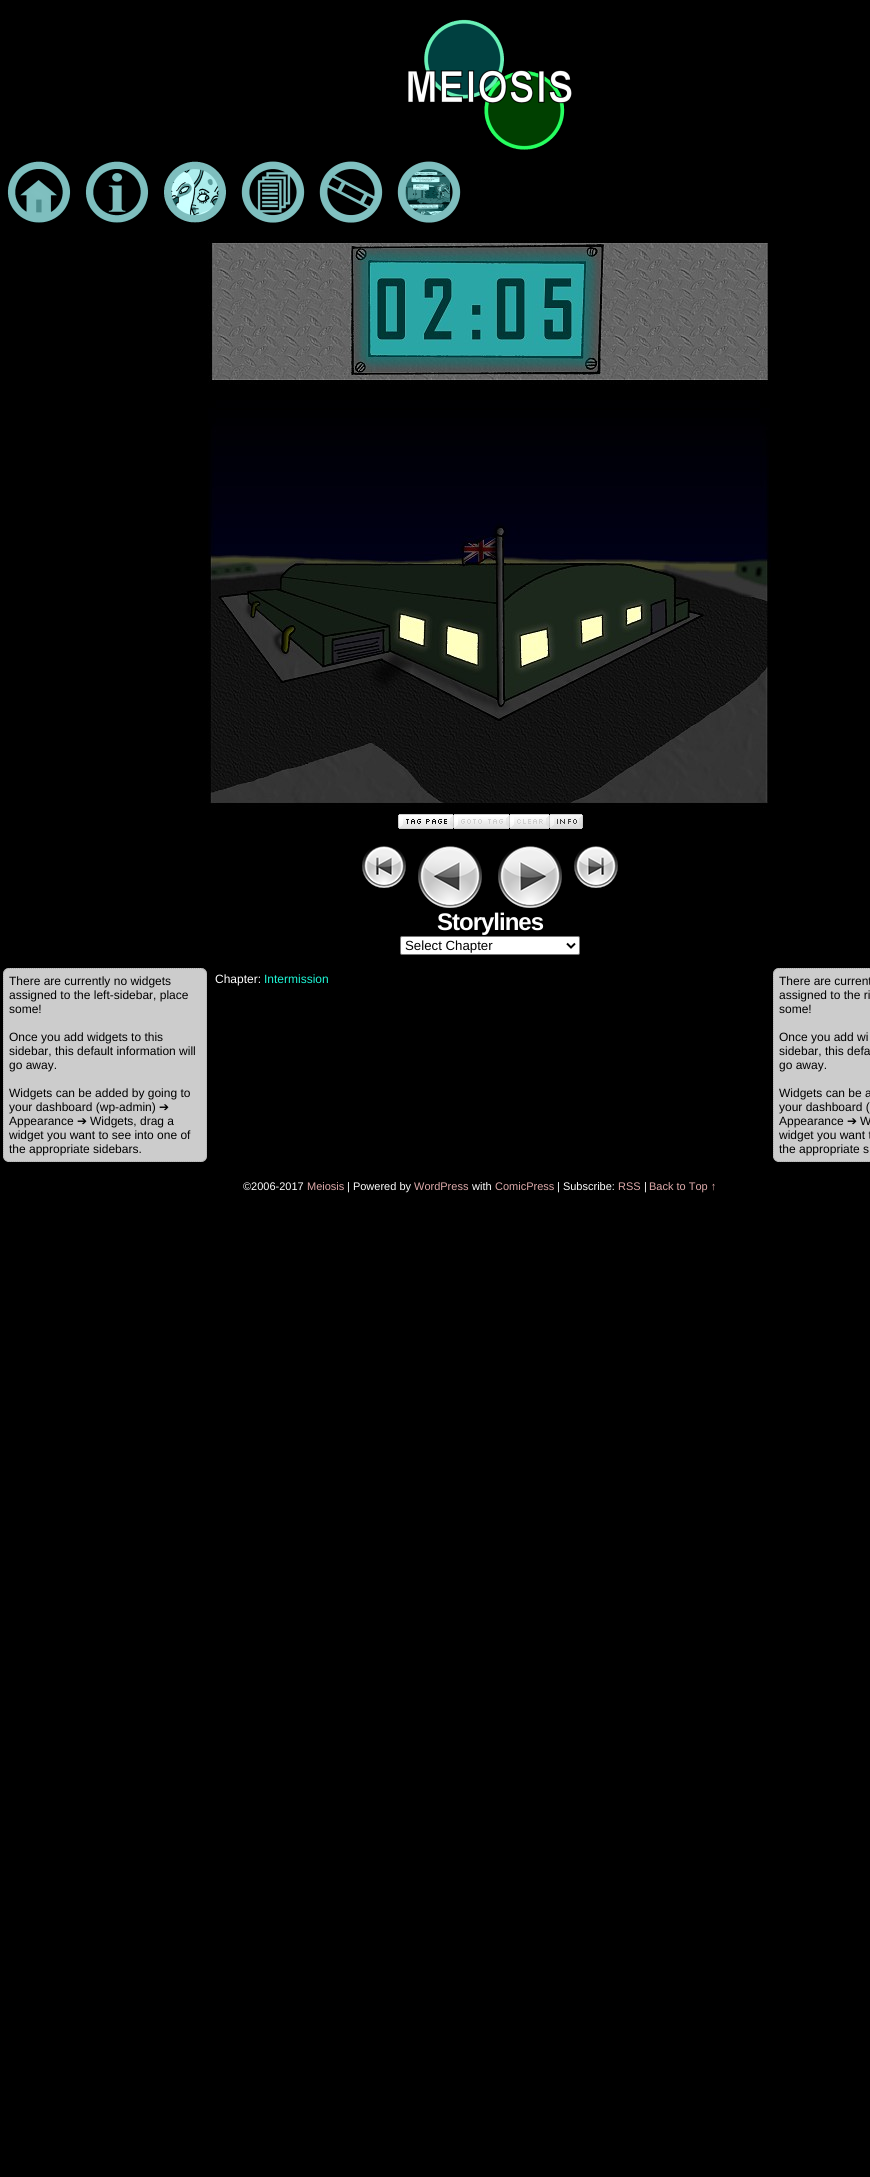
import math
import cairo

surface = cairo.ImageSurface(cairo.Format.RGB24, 870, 2177)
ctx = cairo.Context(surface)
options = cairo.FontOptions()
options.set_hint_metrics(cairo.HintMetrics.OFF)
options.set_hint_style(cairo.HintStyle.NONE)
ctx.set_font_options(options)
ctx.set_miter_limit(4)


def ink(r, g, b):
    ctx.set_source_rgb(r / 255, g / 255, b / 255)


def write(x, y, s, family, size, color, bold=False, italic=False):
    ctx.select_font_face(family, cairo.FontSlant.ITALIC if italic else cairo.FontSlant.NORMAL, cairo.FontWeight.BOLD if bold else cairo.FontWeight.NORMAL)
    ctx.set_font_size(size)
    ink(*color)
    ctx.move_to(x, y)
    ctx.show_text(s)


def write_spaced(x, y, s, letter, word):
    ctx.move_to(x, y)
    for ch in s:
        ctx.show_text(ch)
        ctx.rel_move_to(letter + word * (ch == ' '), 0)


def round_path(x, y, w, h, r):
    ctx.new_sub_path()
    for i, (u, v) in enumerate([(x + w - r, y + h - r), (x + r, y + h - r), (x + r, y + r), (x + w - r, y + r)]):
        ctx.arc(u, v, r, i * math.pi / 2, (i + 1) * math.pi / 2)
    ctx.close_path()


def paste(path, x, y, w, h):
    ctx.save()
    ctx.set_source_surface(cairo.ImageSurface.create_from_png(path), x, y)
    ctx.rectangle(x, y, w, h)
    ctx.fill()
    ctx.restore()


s1 = dict(family="Liberation Sans", size=13.25, color=(0, 0, 0))
s2 = dict(family="Liberation Sans", size=12, color=(0, 0, 0))
s3 = dict(family="DejaVu Sans", size=12, color=(0, 0, 0))
s4 = dict(family="Liberation Sans", size=12, color=(255, 255, 255))
s5 = dict(family="Liberation Sans", size=12, color=(29, 247, 214))
s6 = dict(family="Liberation Sans", size=11, color=(255, 255, 255))
s7 = dict(family="Liberation Sans", size=11, color=(221, 170, 170))

ink(0, 0, 0)
ctx.paint()
paste("pic1.png", 408, 19, 164, 131)
paste("pic2.png", 7, 161, 64, 62)
paste("pic3.png", 85, 161, 64, 62)
paste("pic4.png", 164, 161, 62, 62)
paste("pic5.png", 241, 161, 64, 62)
paste("pic6.png", 319, 161, 64, 62)
paste("pic7.png", 397, 161, 64, 62)
paste("pic8.png", 208, 240, 563, 568)
paste("pic9.png", 398, 814, 56, 15)
paste("pic10.png", 454, 814, 56, 15)
paste("pic11.png", 510, 814, 40, 15)
paste("pic12.png", 550, 814, 33, 15)
paste("pic13.png", 362, 846, 44, 42)
paste("pic14.png", 418, 846, 64, 62)
paste("pic15.png", 498, 846, 64, 62)
paste("pic16.png", 574, 846, 44, 42)
ctx.select_font_face("Liberation Sans", cairo.FontSlant.NORMAL, cairo.FontWeight.BOLD)
ctx.set_font_size(24)
ink(255, 255, 255)
write_spaced(437, 930, "Storylines", -1, 0)
round_path(400.5, 936.5, 179, 18, 1.5)
ctx.fill_preserve()
ink(118, 118, 118)
ctx.set_line_width(1)
ctx.stroke()
ctx.new_path()
ctx.move_to(567, 943.5)
ctx.line_to(571, 947.5)
ctx.line_to(575, 943.5)
ink(0, 0, 0)
ctx.set_line_width(2)
ctx.stroke()
write(405, 950, "Select Chapter", **s1)
ink(204, 204, 204)
round_path(3, 968, 204, 194, 6)
ctx.fill()
ctx.new_path()
ctx.move_to(9, 968.5)
ctx.line_to(201, 968.5)
ctx.curve_to(204, 968.5, 206.5, 971, 206.5, 974)
ctx.line_to(206.5, 1156)
ctx.curve_to(206.5, 1159, 204, 1161.5, 201, 1161.5)
ctx.line_to(9, 1161.5)
ctx.curve_to(6, 1161.5, 3.5, 1159, 3.5, 1156)
ctx.line_to(3.5, 974)
ctx.curve_to(3.5, 971, 6, 968.5, 9, 968.5)
ctx.close_path()
ink(170, 170, 170)
ctx.set_line_width(1)
ctx.set_dash([1, 1])
ctx.stroke()
write(9, 985, "There are currently no widgets", **s2)
write(9, 999, "assigned to the left-sidebar, place", **s2)
write(9, 1013, "some!", **s2)
write(9, 1041, "Once you add widgets to this", **s2)
write(9, 1055, "sidebar, this default information will", **s2)
write(9, 1069, "go away.", **s2)
write(9, 1097, "Widgets can be added by going to", **s2)
write(9, 1111, "your dashboard (wp-admin)", **s2)
write(159, 1111, "➔", **s3)
write(9, 1125, "Appearance", **s2)
write(77, 1125, "➔", **s3)
write(90, 1125, "Widgets, drag a", **s2)
write(9, 1139, "widget you want to see into one of", **s2)
write(9, 1153, "the appropriate sidebars.", **s2)
write(215, 983, "Chapter:", **s4)
write(264, 983, "Intermission", **s5)
ink(204, 204, 204)
round_path(773, 968, 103, 194, 6)
ctx.fill()
ctx.new_path()
ctx.move_to(779, 968.5)
ctx.line_to(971, 968.5)
ctx.curve_to(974, 968.5, 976.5, 971, 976.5, 974)
ctx.line_to(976.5, 1156)
ctx.curve_to(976.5, 1159, 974, 1161.5, 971, 1161.5)
ctx.line_to(779, 1161.5)
ctx.curve_to(776, 1161.5, 773.5, 1159, 773.5, 1156)
ctx.line_to(773.5, 974)
ctx.curve_to(773.5, 971, 776, 968.5, 779, 968.5)
ctx.close_path()
ink(170, 170, 170)
ctx.stroke()
write(779, 985, "There are current", **s2)
write(779, 999, "assigned to the ri", **s2)
write(779, 1013, "some!", **s2)
write(779, 1041, "Once you add wi", **s2)
write(779, 1055, "sidebar, this defa", **s2)
write(779, 1069, "go away.", **s2)
write(779, 1097, "Widgets can be a", **s2)
write(779, 1111, "your dashboard (", **s2)
write(779, 1125, "Appearance", **s2)
write(847, 1125, "➔", **s3)
write(860, 1125, "W", **s2)
write(779, 1139, "widget you want t", **s2)
write(779, 1153, "the appropriate s", **s2)
write(243, 1190, "©2006-2017", **s6)
write(307, 1190, "Meiosis", **s7)
write(347, 1190, "| Powered by", **s6)
write(414, 1190, "WordPress", **s7)
write(472, 1190, "with", **s6)
write(495, 1190, "ComicPress", **s7)
write(557, 1190, "| Subscribe:", **s6)
write(618, 1190, "RSS", **s7)
write(644, 1190, "|", **s6)
write(649, 1190, "Back to Top ↑", **s7)
surface.write_to_png("screenshot.png")
